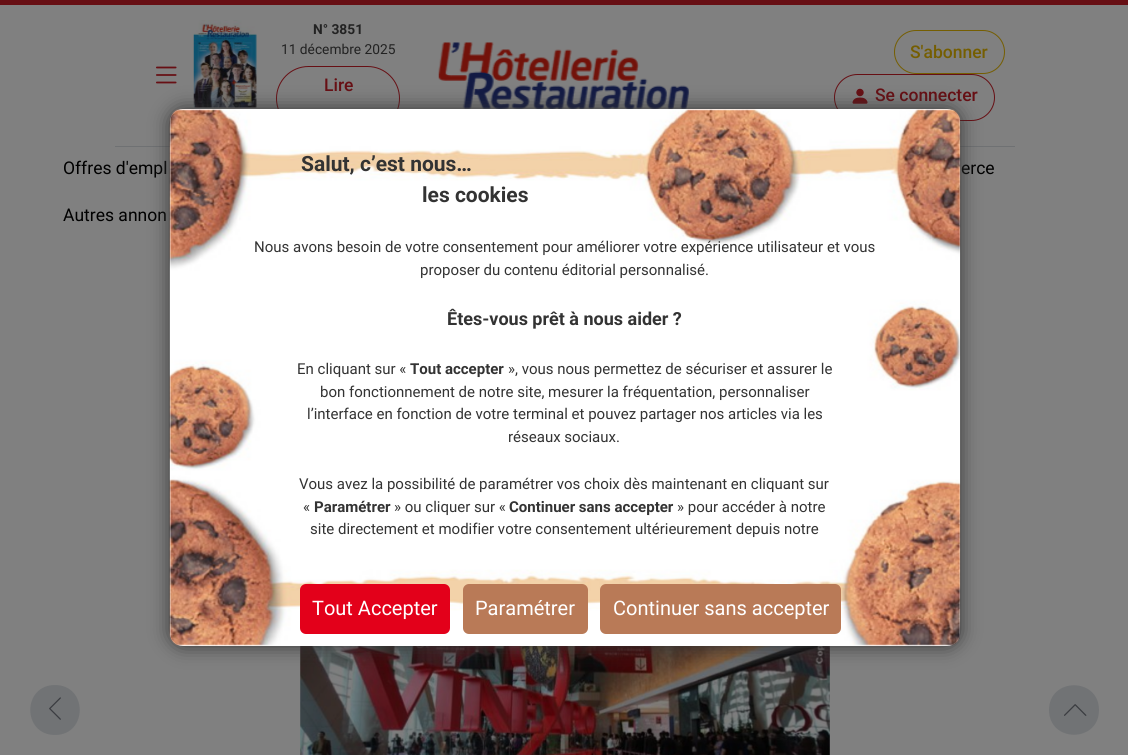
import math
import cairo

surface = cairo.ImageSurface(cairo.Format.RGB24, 1128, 755)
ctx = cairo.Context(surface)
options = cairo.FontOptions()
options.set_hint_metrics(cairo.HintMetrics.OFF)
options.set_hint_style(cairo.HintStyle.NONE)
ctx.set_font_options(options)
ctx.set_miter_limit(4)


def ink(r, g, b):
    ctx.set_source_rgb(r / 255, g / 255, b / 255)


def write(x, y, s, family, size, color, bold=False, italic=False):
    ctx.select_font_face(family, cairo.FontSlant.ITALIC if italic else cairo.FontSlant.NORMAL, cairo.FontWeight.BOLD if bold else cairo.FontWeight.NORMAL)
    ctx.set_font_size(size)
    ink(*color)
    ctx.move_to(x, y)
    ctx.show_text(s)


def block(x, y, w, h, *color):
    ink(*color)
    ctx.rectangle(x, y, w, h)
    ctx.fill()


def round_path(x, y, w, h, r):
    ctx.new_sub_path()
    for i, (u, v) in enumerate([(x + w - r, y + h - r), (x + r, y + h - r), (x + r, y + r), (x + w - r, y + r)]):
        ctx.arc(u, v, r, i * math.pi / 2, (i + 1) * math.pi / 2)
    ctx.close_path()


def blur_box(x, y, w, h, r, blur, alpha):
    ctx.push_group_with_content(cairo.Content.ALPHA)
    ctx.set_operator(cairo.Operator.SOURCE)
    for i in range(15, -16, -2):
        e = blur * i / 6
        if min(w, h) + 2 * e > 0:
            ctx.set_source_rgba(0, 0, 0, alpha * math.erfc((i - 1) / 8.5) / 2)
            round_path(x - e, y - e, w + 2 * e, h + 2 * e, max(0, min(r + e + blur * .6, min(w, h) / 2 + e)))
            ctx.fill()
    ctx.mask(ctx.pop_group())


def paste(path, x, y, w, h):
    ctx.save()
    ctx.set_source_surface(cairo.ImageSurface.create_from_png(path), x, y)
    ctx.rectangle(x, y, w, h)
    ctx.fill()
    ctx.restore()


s1 = dict(family="Roboto", size=13.75, color=(34, 34, 34), bold=True)
s2 = dict(family="Roboto", size=13.75, color=(34, 34, 34))
s3 = dict(family="Roboto Medium", size=17.5, color=(103, 15, 20))
s4 = dict(family="Roboto Medium", size=17.5, color=(117, 94, 1))
s5 = dict(family="Roboto", size=17.5, color=(0, 0, 0))
s6 = dict(family="Roboto", size=21, color=(51, 51, 51), bold=True)
s7 = dict(family="Roboto", size=15, color=(51, 51, 51))
s8 = dict(family="Roboto", size=18, color=(51, 51, 51), bold=True)
s9 = dict(family="Roboto", size=15, color=(51, 51, 51), bold=True)
s10 = dict(family="Roboto", size=20, color=(255, 255, 255))

ink(128, 128, 128)
ctx.paint()
block(0, 0, 1128, 5, 103, 15, 20)
paste("pic1.png", 156, 66, 21, 18)
paste("pic2.png", 193, 20, 64, 88)
write(313, 34, "N° 3851", **s1)
write(281, 54, "11 décembre 2025", **s2)
round_path(276.5, 66.5, 123, 64, 32)
ink(103, 15, 20)
ctx.set_line_width(1)
ctx.stroke()
write(324, 91, "Lire", **s3)
paste("pic3.png", 438, 42, 251, 67)
round_path(894.5, 30.5, 110, 43, 21.5)
ink(117, 94, 1)
ctx.stroke()
write(910, 58, "S'abonner", **s4)
round_path(834.5, 74.5, 160, 46, 23)
ink(103, 15, 20)
ctx.stroke()
paste("pic4.png", 852, 88, 16, 16)
write(875, 101, "Se connecter", **s3)
block(115, 146, 900, 1, 111, 113, 115)
write(63, 174, "Offres d'empl", **s5)
write(961, 174, "erce", **s5)
write(63, 221, "Autres annon", **s5)
ink(113, 115, 117)
ctx.new_path()
ctx.move_to(55, 735)
ctx.curve_to(22, 735, 22, 685, 55, 685)
ctx.curve_to(88, 685, 88, 735, 55, 735)
ctx.close_path()
ctx.fill()
paste("pic5.png", 49, 697, 12, 23)
paste("pic6.png", 300, 646, 530, 109)
ctx.new_path()
ctx.move_to(1049, 710)
ctx.curve_to(1049, 677, 1099, 677, 1099, 710)
ctx.curve_to(1099, 743, 1049, 743, 1049, 710)
ctx.close_path()
ctx.fill()
paste("pic7.png", 1064, 704, 23, 12)
ink(51, 51, 51)
blur_box(170, 109, 790, 537, 13, 9.5, 1)
ink(255, 255, 255)
round_path(170, 109, 790, 537, 13)
ctx.fill()
paste("pic8.png", 169, 109, 792, 537)
write(301, 171, "Salut, c’est nous…", **s6)
write(422, 202, "les cookies", **s6)
write(254, 252, "Nous avons besoin de votre consentement pour améliorer votre expérience utilisateur et vous", **s7)
write(420, 275, "proposer du contenu éditorial personnalisé.", **s7)
write(447, 325, "Êtes-vous prêt à nous aider ?", **s8)
write(297, 374, "En cliquant sur «", **s7)
write(410, 374, "Tout accepter", **s9)
write(508, 374, "», vous nous permettez de sécuriser et assurer le", **s7)
write(320, 397, "bon fonctionnement de notre site, mesurer la fréquentation, personnaliser", **s7)
write(307, 419, "l’interface en fonction de votre terminal et pouvez partager nos articles via les", **s7)
write(508, 442, "réseaux sociaux.", **s7)
write(299, 489, "Vous avez la possibilité de paramétrer vos choix dès maintenant en cliquant sur", **s7)
write(303, 512, "«", **s7)
write(314, 512, "Paramétrer", **s9)
write(394, 512, "» ou cliquer sur «", **s7)
write(509, 512, "Continuer sans accepter", **s9)
write(677, 512, "» pour accéder à notre", **s7)
write(310, 534, "site directement et modifier votre consentement ultérieurement depuis notre", **s7)
ink(227, 0, 26)
round_path(300, 584, 150, 50, 6)
ctx.fill()
write(312, 615, "Tout Accepter", **s10)
ink(185, 122, 87)
round_path(463, 584, 125, 50, 6)
ctx.fill()
write(475, 615, "Paramétrer", **s10)
ink(185, 122, 87)
round_path(600, 584, 241, 50, 6)
ctx.fill()
write(613, 615, "Continuer sans accepter", **s10)
surface.write_to_png("screenshot.png")
